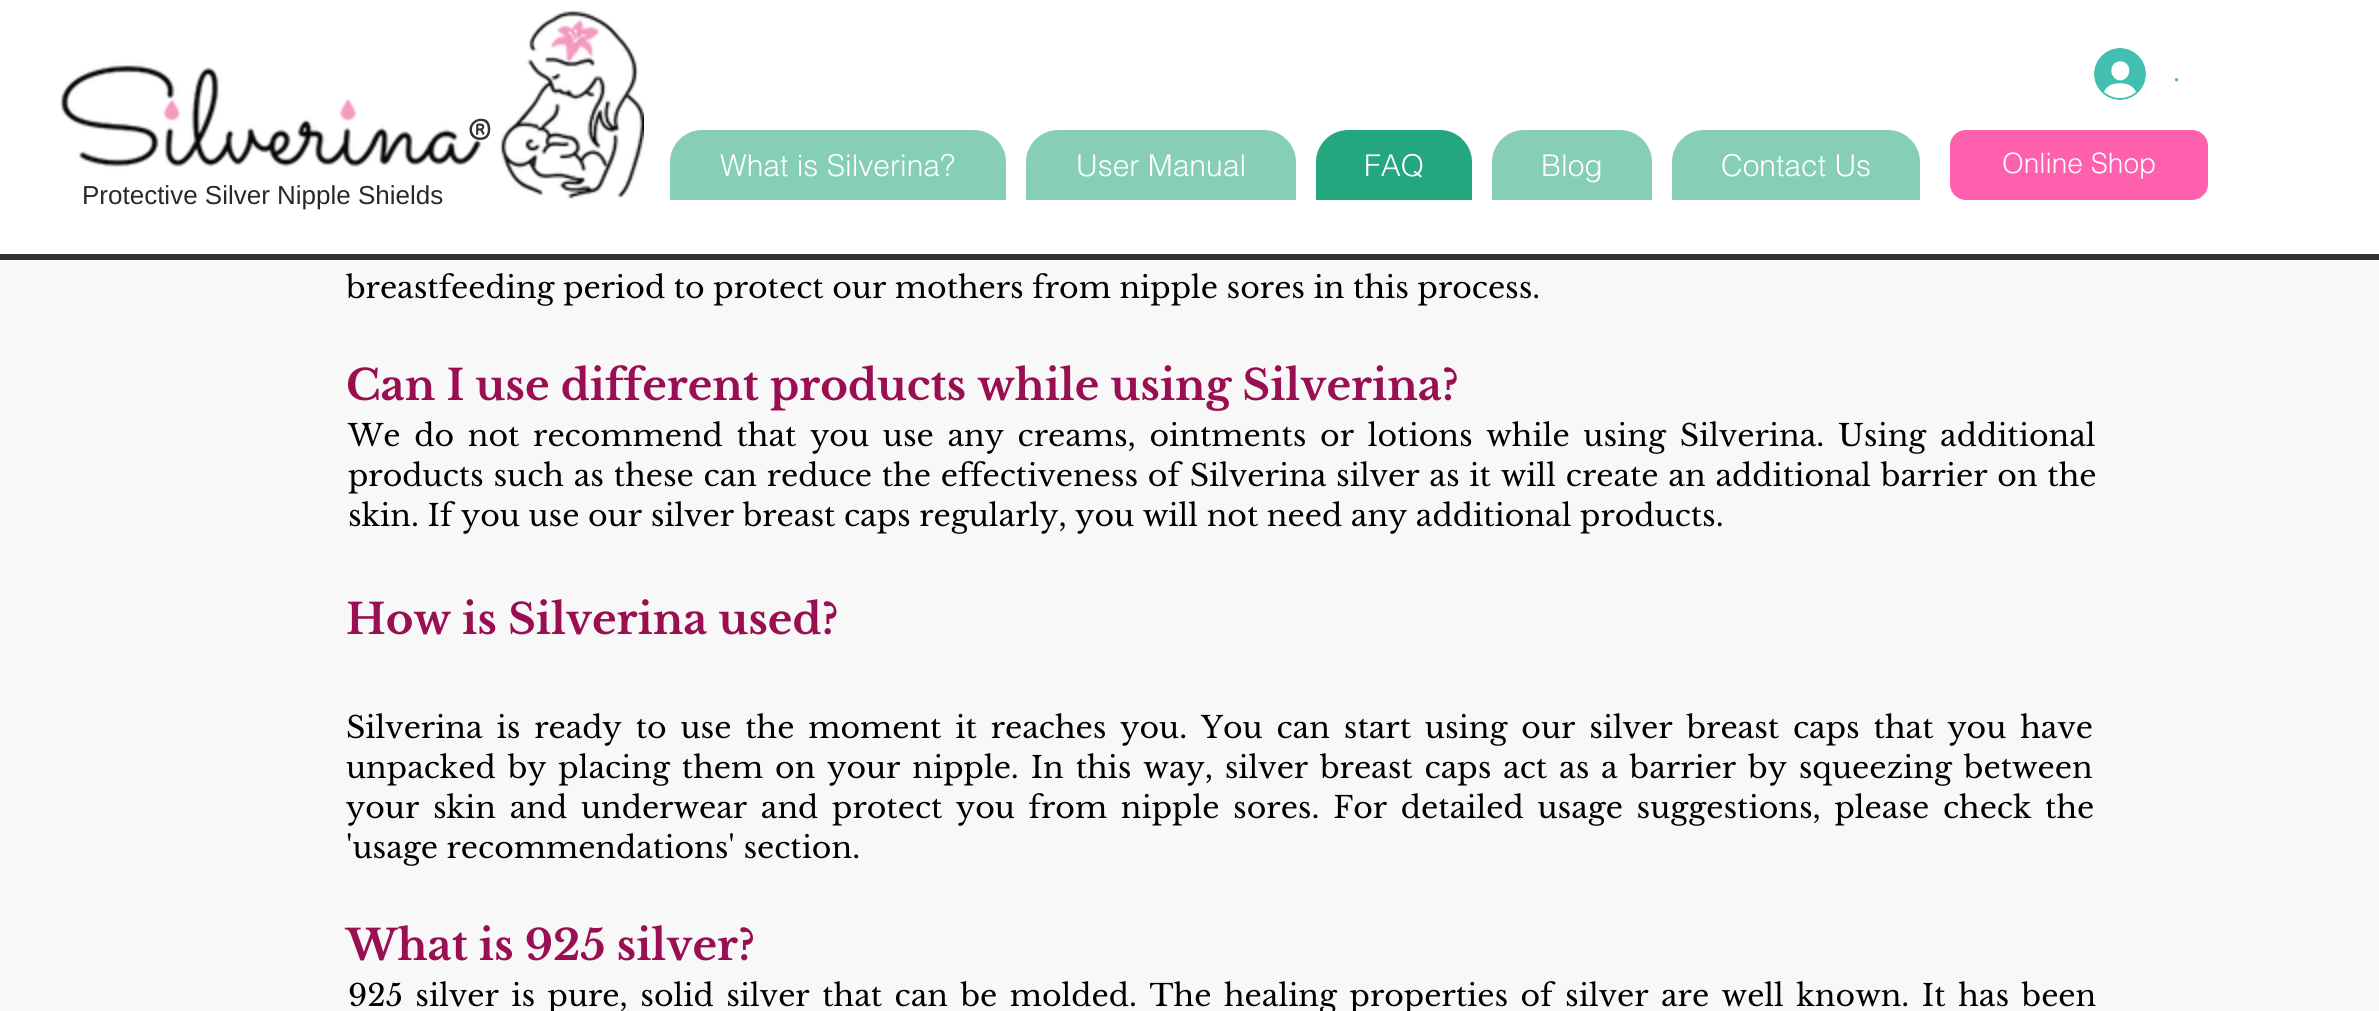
import math
import cairo

surface = cairo.ImageSurface(cairo.Format.RGB24, 2379, 1011)
ctx = cairo.Context(surface)
options = cairo.FontOptions()
options.set_hint_metrics(cairo.HintMetrics.OFF)
options.set_hint_style(cairo.HintStyle.NONE)
ctx.set_font_options(options)
ctx.set_miter_limit(4)


def ink(r, g, b):
    ctx.set_source_rgb(r / 255, g / 255, b / 255)


def write(x, y, s, family, size, color, bold=False, italic=False):
    ctx.select_font_face(family, cairo.FontSlant.ITALIC if italic else cairo.FontSlant.NORMAL, cairo.FontWeight.BOLD if bold else cairo.FontWeight.NORMAL)
    ctx.set_font_size(size)
    ink(*color)
    ctx.move_to(x, y)
    ctx.show_text(s)


def write_spaced(x, y, s, letter, word):
    ctx.move_to(x, y)
    for ch in s:
        ctx.show_text(ch)
        ctx.rel_move_to(letter + word * (ch == ' '), 0)


def block(x, y, w, h, *color):
    ink(*color)
    ctx.rectangle(x, y, w, h)
    ctx.fill()


def round_path(x, y, w, h, r):
    ctx.new_sub_path()
    for i, (u, v) in enumerate([(x + w - r, y + h - r), (x + r, y + h - r), (x + r, y + r), (x + w - r, y + r)]):
        ctx.arc(u, v, r, i * math.pi / 2, (i + 1) * math.pi / 2)
    ctx.close_path()


def paste(path, x, y, w, h):
    ctx.save()
    ctx.set_source_surface(cairo.ImageSurface.create_from_png(path), x, y)
    ctx.rectangle(x, y, w, h)
    ctx.fill()
    ctx.restore()


s1 = dict(family="Liberation Serif", size=28, color=(66, 191, 176))
s2 = dict(family="Patrick Hand", size=32, color=(51, 51, 51))
s3 = dict(family="helvetica Light", size=30, color=(255, 255, 255))
s4 = dict(family="helvetica Light", size=28, color=(255, 255, 255))
s5 = dict(family="Liberation Sans", size=26, color=(41, 41, 41))
s6 = dict(family="Libre Baskerville", size=30, color=(0, 0, 0))
s7 = dict(family="Libre Baskerville", size=42, color=(153, 15, 81), bold=True)

ink(248, 248, 248)
ctx.paint()
block(0, 0, 2379, 254, 255, 255, 255)
block(0, 254, 2379, 6, 51, 51, 51)
paste("pic1.png", 60, 10, 584, 189)
paste("pic2.png", 2094, 48, 52, 52)
write(2173, 81, ".", **s1)
write(468, 140, "®", **s2)
ink(135, 206, 185)
ctx.new_path()
ctx.move_to(702, 130)
ctx.line_to(974, 130)
ctx.curve_to(991.5, 130, 1006, 144.5, 1006, 162)
ctx.line_to(1006, 200)
ctx.line_to(670, 200)
ctx.line_to(670, 162)
ctx.curve_to(670, 144.5, 684.5, 130, 702, 130)
ctx.close_path()
ctx.fill()
write(720, 176, "What is Silverina?", **s3)
ink(135, 206, 185)
ctx.new_path()
ctx.move_to(1058, 130)
ctx.line_to(1264, 130)
ctx.curve_to(1281.5, 130, 1296, 144.5, 1296, 162)
ctx.line_to(1296, 200)
ctx.line_to(1026, 200)
ctx.line_to(1026, 162)
ctx.curve_to(1026, 144.5, 1040.5, 130, 1058, 130)
ctx.close_path()
ctx.fill()
write(1076, 176, "User Manual", **s3)
ink(36, 166, 127)
ctx.new_path()
ctx.move_to(1348, 130)
ctx.line_to(1440, 130)
ctx.curve_to(1457.5, 130, 1472, 144.5, 1472, 162)
ctx.line_to(1472, 200)
ctx.line_to(1316, 200)
ctx.line_to(1316, 162)
ctx.curve_to(1316, 144.5, 1330.5, 130, 1348, 130)
ctx.close_path()
ctx.fill()
write(1364, 176, "FAQ", **s3)
ink(135, 206, 185)
ctx.new_path()
ctx.move_to(1524, 130)
ctx.line_to(1620, 130)
ctx.curve_to(1637.5, 130, 1652, 144.5, 1652, 162)
ctx.line_to(1652, 200)
ctx.line_to(1492, 200)
ctx.line_to(1492, 162)
ctx.curve_to(1492, 144.5, 1506.5, 130, 1524, 130)
ctx.close_path()
ctx.fill()
write(1541, 176, "Blog", **s3)
ink(135, 206, 185)
ctx.new_path()
ctx.move_to(1704, 130)
ctx.line_to(1888, 130)
ctx.curve_to(1905.5, 130, 1920, 144.5, 1920, 162)
ctx.line_to(1920, 200)
ctx.line_to(1672, 200)
ctx.line_to(1672, 162)
ctx.curve_to(1672, 144.5, 1686.5, 130, 1704, 130)
ctx.close_path()
ctx.fill()
write(1721, 176, "Contact Us", **s3)
ink(255, 96, 173)
round_path(1950, 130, 258, 70, 16)
ctx.fill()
write(2002, 173, "Online Shop", **s4)
write(82, 204, "Protective Silver Nipple Shields", **s5)
write(346, 298, "breastfeeding period to protect our mothers from nipple sores in this process.", **s6)
write(346, 400, "Can I use different products while using Silverina?", **s7)
ctx.select_font_face("Libre Baskerville")
ctx.set_font_size(30)
ink(0, 0, 0)
write_spaced(348, 446, "We do not recommend that you use any creams, ointments or lotions while using Silverina. Using additional", 0, 5.1)
write_spaced(348, 486, "products such as these can reduce the effectiveness of Silverina silver as it will create an additional barrier on the", 0, 1.2)
write(348, 526, "skin. If you use our silver breast caps regularly, you will not need any additional products.", **s6)
write(346, 634, "How is Silverina used?", **s7)
ctx.select_font_face("Libre Baskerville")
ctx.set_font_size(30)
ink(0, 0, 0)
write_spaced(346, 738, "Silverina is ready to use the moment it reaches you. You can start using our silver breast caps that you have", 0, 5.25)
write_spaced(346, 778, "unpacked by placing them on your nipple. In this way, silver breast caps act as a barrier by squeezing between", 0, 3.25)
write_spaced(346, 818, "your skin and underwear and protect you from nipple sores. For detailed usage suggestions, please check the", 0, 5.1)
write(346, 858, "'usage recommendations' section.", **s6)
write(346, 960, "What is 925 silver?", **s7)
ctx.select_font_face("Libre Baskerville")
ctx.set_font_size(30)
ink(0, 0, 0)
write_spaced(348, 1006, "925 silver is pure, solid silver that can be molded. The healing properties of silver are well known. It has been", 0, 3.9)
surface.write_to_png("screenshot.png")
